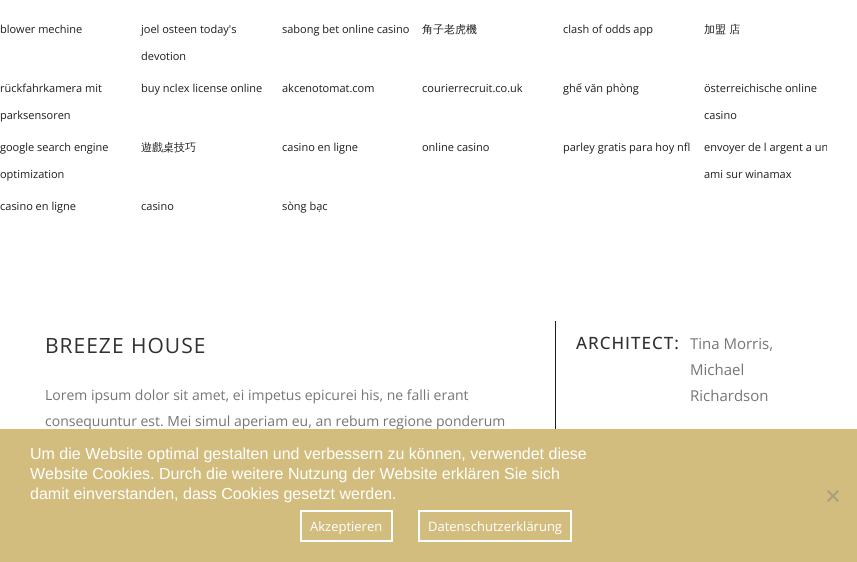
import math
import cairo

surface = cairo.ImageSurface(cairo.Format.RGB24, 857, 562)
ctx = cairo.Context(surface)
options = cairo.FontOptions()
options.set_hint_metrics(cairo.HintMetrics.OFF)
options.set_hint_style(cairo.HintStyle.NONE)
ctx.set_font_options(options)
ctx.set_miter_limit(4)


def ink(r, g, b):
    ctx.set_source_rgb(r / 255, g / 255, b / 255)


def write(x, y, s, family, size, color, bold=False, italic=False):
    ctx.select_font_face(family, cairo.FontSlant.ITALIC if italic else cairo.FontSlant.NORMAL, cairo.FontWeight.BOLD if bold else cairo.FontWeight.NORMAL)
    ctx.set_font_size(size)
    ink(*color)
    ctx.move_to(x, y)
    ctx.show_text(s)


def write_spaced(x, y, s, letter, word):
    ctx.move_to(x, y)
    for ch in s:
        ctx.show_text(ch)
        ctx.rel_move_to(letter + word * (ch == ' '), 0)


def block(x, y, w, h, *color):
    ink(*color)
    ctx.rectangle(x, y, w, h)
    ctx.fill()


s1 = dict(family="Open Sans", size=11, color=(29, 29, 29))
s2 = dict(family="WenQuanYi Zen Hei Medium", size=11, color=(29, 29, 29))
s3 = dict(family="Open Sans", size=14, color=(117, 117, 117))
s4 = dict(family="Open Sans", size=15, color=(117, 117, 117))
s5 = dict(family="Liberation Sans", size=16, color=(255, 255, 255))
s6 = dict(family="Open Sans", size=13, color=(255, 255, 255))

ink(255, 255, 255)
ctx.paint()
write(0, 33, "blower mechine", **s1)
write(141, 33, "joel osteen today's", **s1)
write(141, 60, "devotion", **s1)
write(282, 33, "sabong bet online casino", **s1)
write(422, 33, "角子老虎機", **s2)
write(563, 33, "clash of odds app", **s1)
write(704, 33, "加盟 店", **s2)
write(0, 92, "rückfahrkamera mit", **s1)
write(0, 119, "parksensoren", **s1)
write(141, 92, "buy nclex license online", **s1)
write(282, 92, "akcenotomat.com", **s1)
write(422, 92, "courierrecruit.co.uk", **s1)
write(563, 92, "ghế văn phòng", **s1)
write(704, 92, "österreichische online", **s1)
write(704, 119, "casino", **s1)
write(0, 151, "google search engine", **s1)
write(0, 178, "optimization", **s1)
write(141, 151, "遊戲桌技巧", **s2)
write(282, 151, "casino en ligne", **s1)
write(422, 151, "online casino", **s1)
write(563, 151, "parley gratis para hoy nfl", **s1)
write(704, 151, "envoyer de l argent a un", **s1)
write(704, 178, "ami sur winamax", **s1)
write(0, 210, "casino en ligne", **s1)
write(141, 210, "casino", **s1)
write(282, 210, "sòng bạc", **s1)
block(555, 321, 1, 108, 29, 29, 29)
ctx.set_font_size(21)
ink(49, 49, 49)
write_spaced(45, 353, "BREEZE HOUSE", 1, 0)
write(45, 400, "Lorem ipsum dolor sit amet, ei impetus epicurei his, ne falli erant", **s3)
write(45, 426, "consequuntur est. Mei simul aperiam eu, an rebum regione ponderum", **s3)
ctx.select_font_face("Open Sans Medium")
ctx.set_font_size(17)
ink(49, 49, 49)
write_spaced(576, 349, "ARCHITECT:", 1, 0)
write(690, 349, "Tina Morris,", **s4)
write(690, 375, "Michael", **s4)
write(690, 401, "Richardson", **s4)
block(0, 429, 857, 133, 210, 189, 127)
write(30, 459, "Um die Website optimal gestalten und verbessern zu können, verwendet diese", **s5)
write(30, 479, "Website Cookies. Durch die weitere Nutzung der Website erklären Sie sich", **s5)
write(30, 499, "damit einverstanden, dass Cookies gesetzt werden.", **s5)
ink(169, 159, 128)
ctx.new_path()
ctx.move_to(837.5, 490)
ctx.line_to(839, 491.5)
ctx.line_to(828.5, 502)
ctx.line_to(827, 500.5)
ctx.close_path()
ctx.fill()
ctx.new_path()
ctx.move_to(827, 491.5)
ctx.line_to(828.5, 490)
ctx.line_to(839, 500.5)
ctx.line_to(837.5, 502)
ctx.close_path()
ctx.fill()
ctx.rectangle(301, 511, 91, 30)
ink(255, 255, 255)
ctx.stroke()
write(310, 531, "Akzeptieren", **s6)
ctx.rectangle(419, 511, 152, 30)
ctx.stroke()
write(428, 531, "Datenschutzerklärung", **s6)
surface.write_to_png("screenshot.png")
